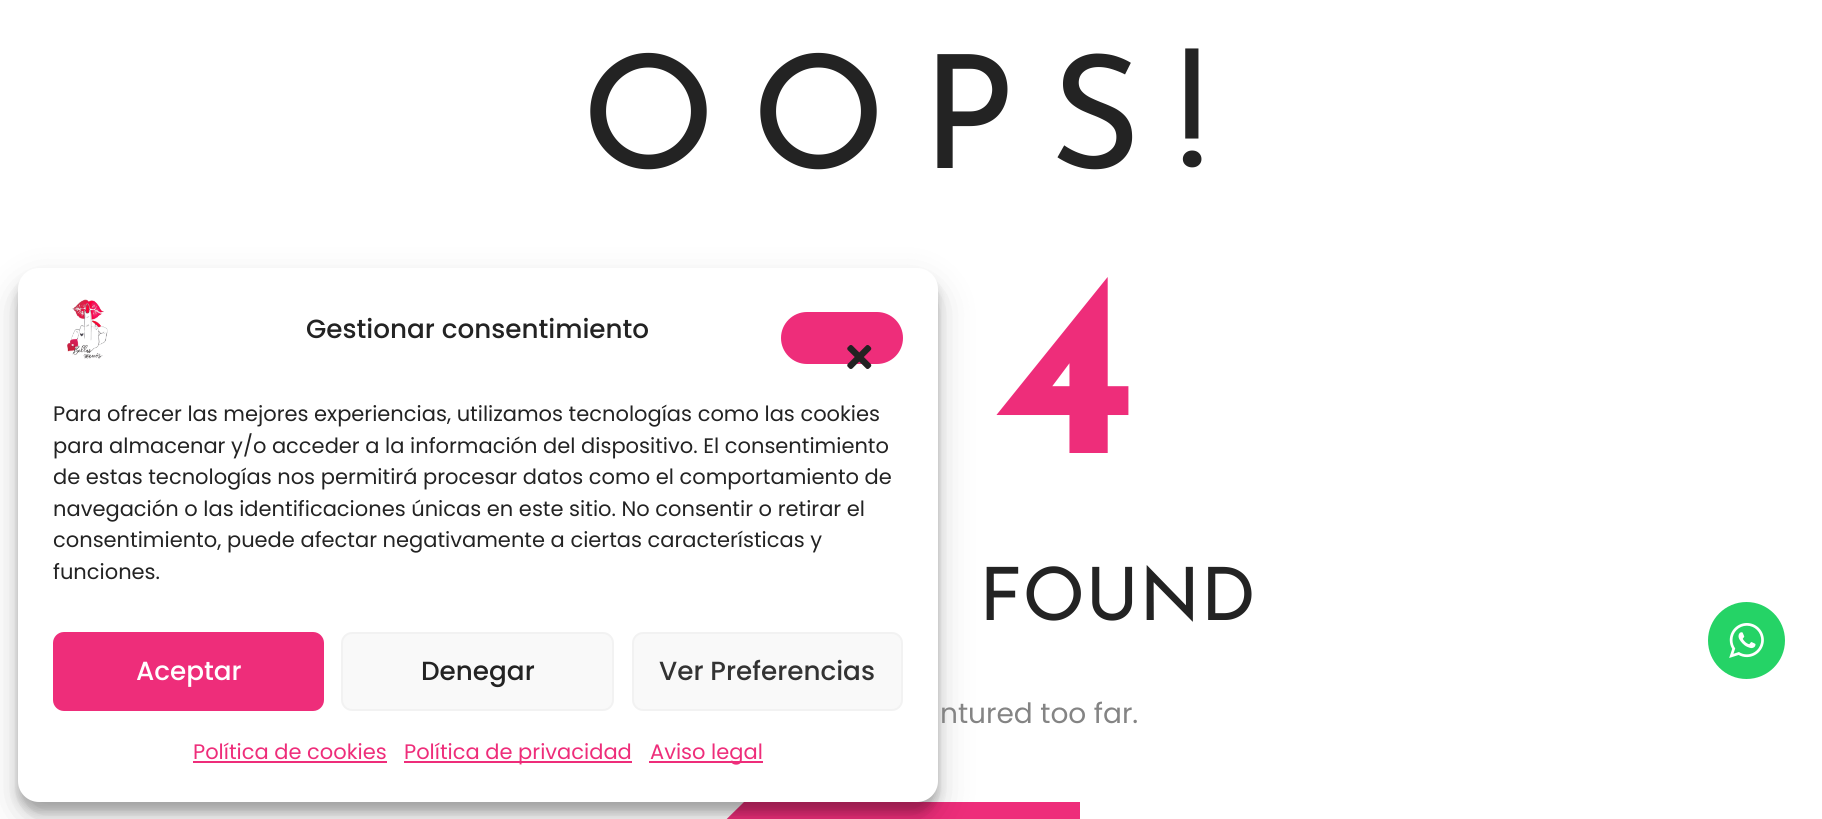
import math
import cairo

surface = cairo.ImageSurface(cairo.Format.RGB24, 1822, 819)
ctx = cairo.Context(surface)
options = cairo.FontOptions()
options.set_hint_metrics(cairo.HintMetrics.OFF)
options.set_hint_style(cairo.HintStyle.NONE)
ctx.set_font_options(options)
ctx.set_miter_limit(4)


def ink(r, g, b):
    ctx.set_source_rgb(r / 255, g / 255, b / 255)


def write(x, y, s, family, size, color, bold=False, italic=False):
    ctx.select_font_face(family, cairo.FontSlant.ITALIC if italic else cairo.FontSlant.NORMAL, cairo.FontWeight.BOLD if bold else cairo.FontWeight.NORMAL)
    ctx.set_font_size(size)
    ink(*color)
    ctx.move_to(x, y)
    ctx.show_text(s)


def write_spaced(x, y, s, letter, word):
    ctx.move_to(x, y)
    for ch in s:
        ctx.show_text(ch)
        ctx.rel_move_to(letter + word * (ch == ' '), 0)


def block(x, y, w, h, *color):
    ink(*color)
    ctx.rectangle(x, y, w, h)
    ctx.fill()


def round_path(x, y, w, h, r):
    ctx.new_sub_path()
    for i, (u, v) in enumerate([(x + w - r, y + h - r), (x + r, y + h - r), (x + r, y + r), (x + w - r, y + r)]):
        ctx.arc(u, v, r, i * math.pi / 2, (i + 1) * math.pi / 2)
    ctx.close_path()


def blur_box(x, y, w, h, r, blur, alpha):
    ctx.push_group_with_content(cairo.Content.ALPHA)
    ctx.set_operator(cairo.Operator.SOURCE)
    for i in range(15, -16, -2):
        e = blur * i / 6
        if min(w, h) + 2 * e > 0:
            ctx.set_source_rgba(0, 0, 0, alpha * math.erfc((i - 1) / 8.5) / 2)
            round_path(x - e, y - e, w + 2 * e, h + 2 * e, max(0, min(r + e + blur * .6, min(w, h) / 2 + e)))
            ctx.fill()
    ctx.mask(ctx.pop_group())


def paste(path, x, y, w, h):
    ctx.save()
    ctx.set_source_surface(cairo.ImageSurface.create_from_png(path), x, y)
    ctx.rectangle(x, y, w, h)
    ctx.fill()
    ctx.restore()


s1 = dict(family="Poppins Medium", size=26.25, color=(35, 35, 35))
s2 = dict(family="Poppins", size=21, color=(35, 35, 35))
s3 = dict(family="Poppins Medium", size=26.25, color=(255, 255, 255))
s4 = dict(family="Poppins Medium", size=26.25, color=(51, 51, 51))
s5 = dict(family="Poppins", size=21, color=(238, 45, 122))
s6 = dict(family="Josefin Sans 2 Thin", size=262, color=(238, 45, 122))
s7 = dict(family="Josefin Sans Thin", size=73.5, color=(35, 35, 35))
s8 = dict(family="Poppins", size=28, color=(132, 132, 132))

ink(255, 255, 255)
ctx.paint()
block(744, 802, 336, 17, 238, 45, 122)
ctx.new_path()
ctx.move_to(744, 802)
ctx.line_to(744, 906)
ctx.line_to(691, 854)
ctx.close_path()
ctx.fill()
ink(0, 0, 0)
blur_box(18, 278, 920, 534, 21, 5, 0.23)
blur_box(18, 285, 920, 534, 21, 17.5, 0.19)
ink(255, 255, 255)
round_path(18, 268, 920, 534, 21)
ctx.fill()
paste("pic1.png", 67, 299, 41, 60)
write(306, 338, "Gestionar consentimiento", **s1)
ink(238, 45, 122)
round_path(781, 312, 122, 52, 26)
ctx.fill()
paste("pic2.png", 847, 345, 25, 24)
write(53, 421, "Para ofrecer las mejores experiencias, utilizamos tecnologías como las cookies", **s2)
write(53, 453, "para almacenar y/o acceder a la información del dispositivo. El consentimiento", **s2)
write(53, 484, "de estas tecnologías nos permitirá procesar datos como el comportamiento de", **s2)
write(53, 516, "navegación o las identificaciones únicas en este sitio. No consentir o retirar el", **s2)
write(53, 547, "consentimiento, puede afectar negativamente a ciertas características y", **s2)
write(53, 579, "funciones.", **s2)
ink(238, 45, 122)
round_path(54, 633, 269, 77, 10)
ctx.fill_preserve()
ctx.stroke()
write(136, 680, "Aceptar", **s3)
ink(249, 249, 249)
round_path(342, 633, 271, 77, 10)
ctx.fill_preserve()
ink(242, 242, 242)
ctx.stroke()
write(421, 680, "Denegar", **s1)
ink(249, 249, 249)
round_path(633, 633, 269, 77, 10)
ctx.fill_preserve()
ink(242, 242, 242)
ctx.stroke()
write(659, 680, "Ver Preferencias", **s4)
write(193, 759, "Política de cookies", **s5)
block(193, 761, 194, 2, 238, 45, 122)
block(404, 761, 228, 2, 238, 45, 122)
write(404, 759, "Política de privacidad", **s5)
block(649, 761, 114, 2, 238, 45, 122)
write(650, 759, "Aviso legal", **s5)
ctx.select_font_face("Josefin Sans Thin")
ctx.set_font_size(157.5)
ink(35, 35, 35)
write_spaced(581, 168, "OOPS!", 35, 0)
write(994, 453, "4", **s6)
write(979, 620, "FOUND", **s7)
write(940, 723, "ntured too far.", **s8)
ink(37, 211, 102)
ctx.new_path()
ctx.arc(1746.5, 640.5, 38.5, 0, 2 * math.pi)
ctx.fill()
paste("pic3.png", 1729, 623, 35, 35)
surface.write_to_png("screenshot.png")
